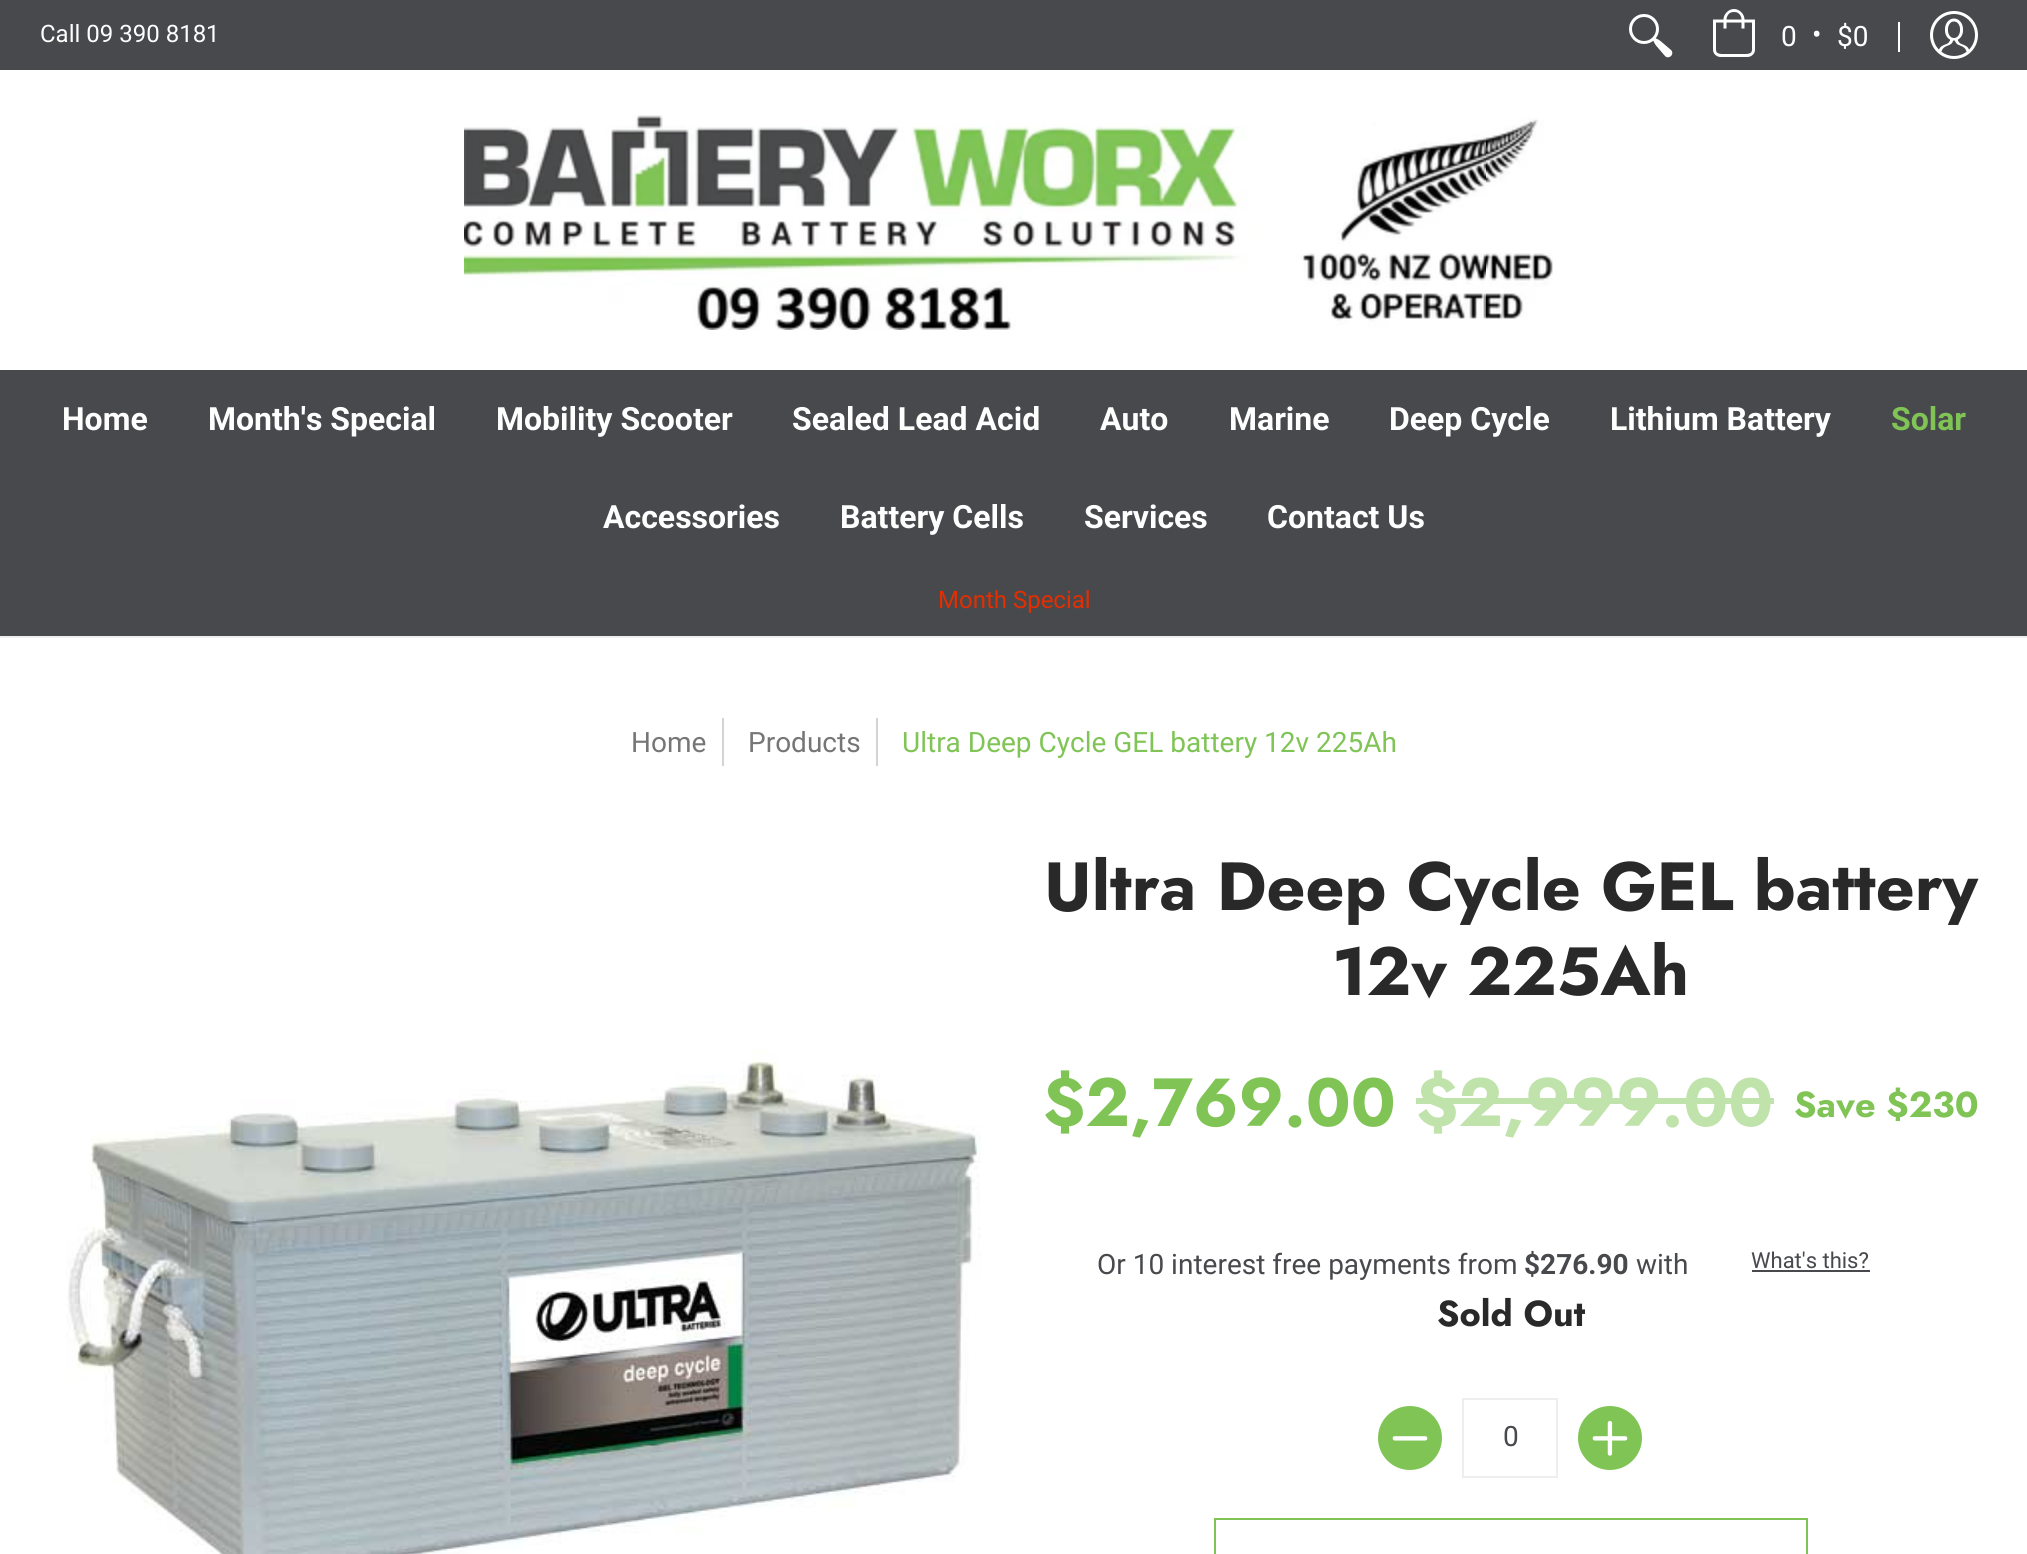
import math
import cairo

surface = cairo.ImageSurface(cairo.Format.RGB24, 2027, 1554)
ctx = cairo.Context(surface)
options = cairo.FontOptions()
options.set_hint_metrics(cairo.HintMetrics.OFF)
options.set_hint_style(cairo.HintStyle.NONE)
ctx.set_font_options(options)
ctx.set_miter_limit(4)


def ink(r, g, b):
    ctx.set_source_rgb(r / 255, g / 255, b / 255)


def write(x, y, s, family, size, color, bold=False, italic=False):
    ctx.select_font_face(family, cairo.FontSlant.ITALIC if italic else cairo.FontSlant.NORMAL, cairo.FontWeight.BOLD if bold else cairo.FontWeight.NORMAL)
    ctx.set_font_size(size)
    ink(*color)
    ctx.move_to(x, y)
    ctx.show_text(s)


def block(x, y, w, h, *color):
    ink(*color)
    ctx.rectangle(x, y, w, h)
    ctx.fill()


def paste(path, x, y, w, h):
    ctx.save()
    ctx.set_source_surface(cairo.ImageSurface.create_from_png(path), x, y)
    ctx.rectangle(x, y, w, h)
    ctx.fill()
    ctx.restore()


s1 = dict(family="Roboto", size=24, color=(255, 255, 255))
s2 = dict(family="Roboto", size=28, color=(255, 255, 255))
s3 = dict(family="Roboto", size=32, color=(255, 255, 255), bold=True)
s4 = dict(family="Roboto", size=32, color=(128, 196, 86), bold=True)
s5 = dict(family="Roboto", size=24, color=(227, 46, 0))
s6 = dict(family="Roboto", size=28, color=(118, 118, 118))
s7 = dict(family="Roboto", size=28, color=(128, 196, 86))
s8 = dict(family="Jost", size=68, color=(41, 41, 41), bold=True)
s9 = dict(family="Jost", size=68, color=(128, 196, 86), bold=True)
s10 = dict(family="Jost", size=68, color=(192, 226, 171), bold=True)
s11 = dict(family="Jost", size=36, color=(128, 196, 86), bold=True)
s12 = dict(family="Roboto", size=28, color=(72, 73, 77))
s13 = dict(family="Roboto", size=28, color=(72, 73, 77), bold=True)
s14 = dict(family="Roboto", size=22, color=(72, 73, 77))
s15 = dict(family="Jost", size=36, color=(41, 41, 41), bold=True)

ink(255, 255, 255)
ctx.paint()
block(0, 0, 2027, 70, 72, 73, 77)
write(40, 42, "Call 09 390 8181", **s1)
paste("pic1.png", 1629, 14, 44, 44)
paste("pic2.png", 1713, 9, 42, 48)
write(1781, 46, "0", **s2)
write(1812, 44, "•", **s2)
write(1837, 46, "$0", **s2)
block(1898, 22, 2, 30, 255, 255, 255)
paste("pic3.png", 1930, 11, 48, 48)
paste("pic4.png", 464, 115, 1089, 215)
block(0, 370, 2027, 266, 72, 73, 77)
write(62, 430, "Home", **s3)
write(208, 430, "Month's Special", **s3)
write(496, 430, "Mobility Scooter", **s3)
write(792, 430, "Sealed Lead Acid", **s3)
write(1100, 430, "Auto", **s3)
write(1229, 430, "Marine", **s3)
write(1389, 430, "Deep Cycle", **s3)
write(1610, 430, "Lithium Battery", **s3)
write(1891, 430, "Solar", **s4)
write(603, 528, "Accessories", **s3)
write(840, 528, "Battery Cells", **s3)
write(1084, 528, "Services", **s3)
write(1267, 528, "Contact Us", **s3)
block(0, 636, 2027, 2, 238, 238, 238)
write(938, 608, "Month Special", **s5)
write(631, 752, "Home", **s6)
block(722, 718, 2, 48, 212, 212, 212)
write(748, 752, "Products", **s6)
block(876, 718, 2, 48, 212, 212, 212)
write(902, 752, "Ultra Deep Cycle GEL battery 12v 225Ah", **s7)
paste("pic5.png", 66, 1049, 915, 505)
write(1044, 910, "Ultra Deep Cycle GEL battery", **s8)
write(1332, 995, "12v 225Ah", **s8)
write(1043, 1126, "$2,769.00", **s9)
write(1416, 1126, "$2,999.00", **s10)
block(1416, 1098, 358, 6, 192, 226, 171)
write(1794, 1117, "Save $230", **s11)
write(1097, 1274, "Or 10 interest free payments from", **s12)
write(1524, 1274, "$276.90", **s13)
write(1636, 1274, "with", **s12)
write(1751, 1268, "What's this?", **s14)
block(1752, 1270, 118, 2, 72, 73, 77)
write(1437, 1326, "Sold Out", **s15)
ink(128, 196, 86)
ctx.new_path()
ctx.arc(1410, 1438, 32, 0, 2 * math.pi)
ctx.fill()
paste("pic6.png", 1392, 1436, 36, 5)
ctx.rectangle(1463, 1399, 94, 78)
ink(238, 238, 238)
ctx.stroke()
write(1503, 1446, "0", **s12)
ink(128, 196, 86)
ctx.new_path()
ctx.arc(1610, 1438, 32, 0, 2 * math.pi)
ctx.fill()
paste("pic7.png", 1592, 1421, 36, 35)
ctx.rectangle(1215, 1519, 592, 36)
ctx.stroke()
surface.write_to_png("screenshot.png")
